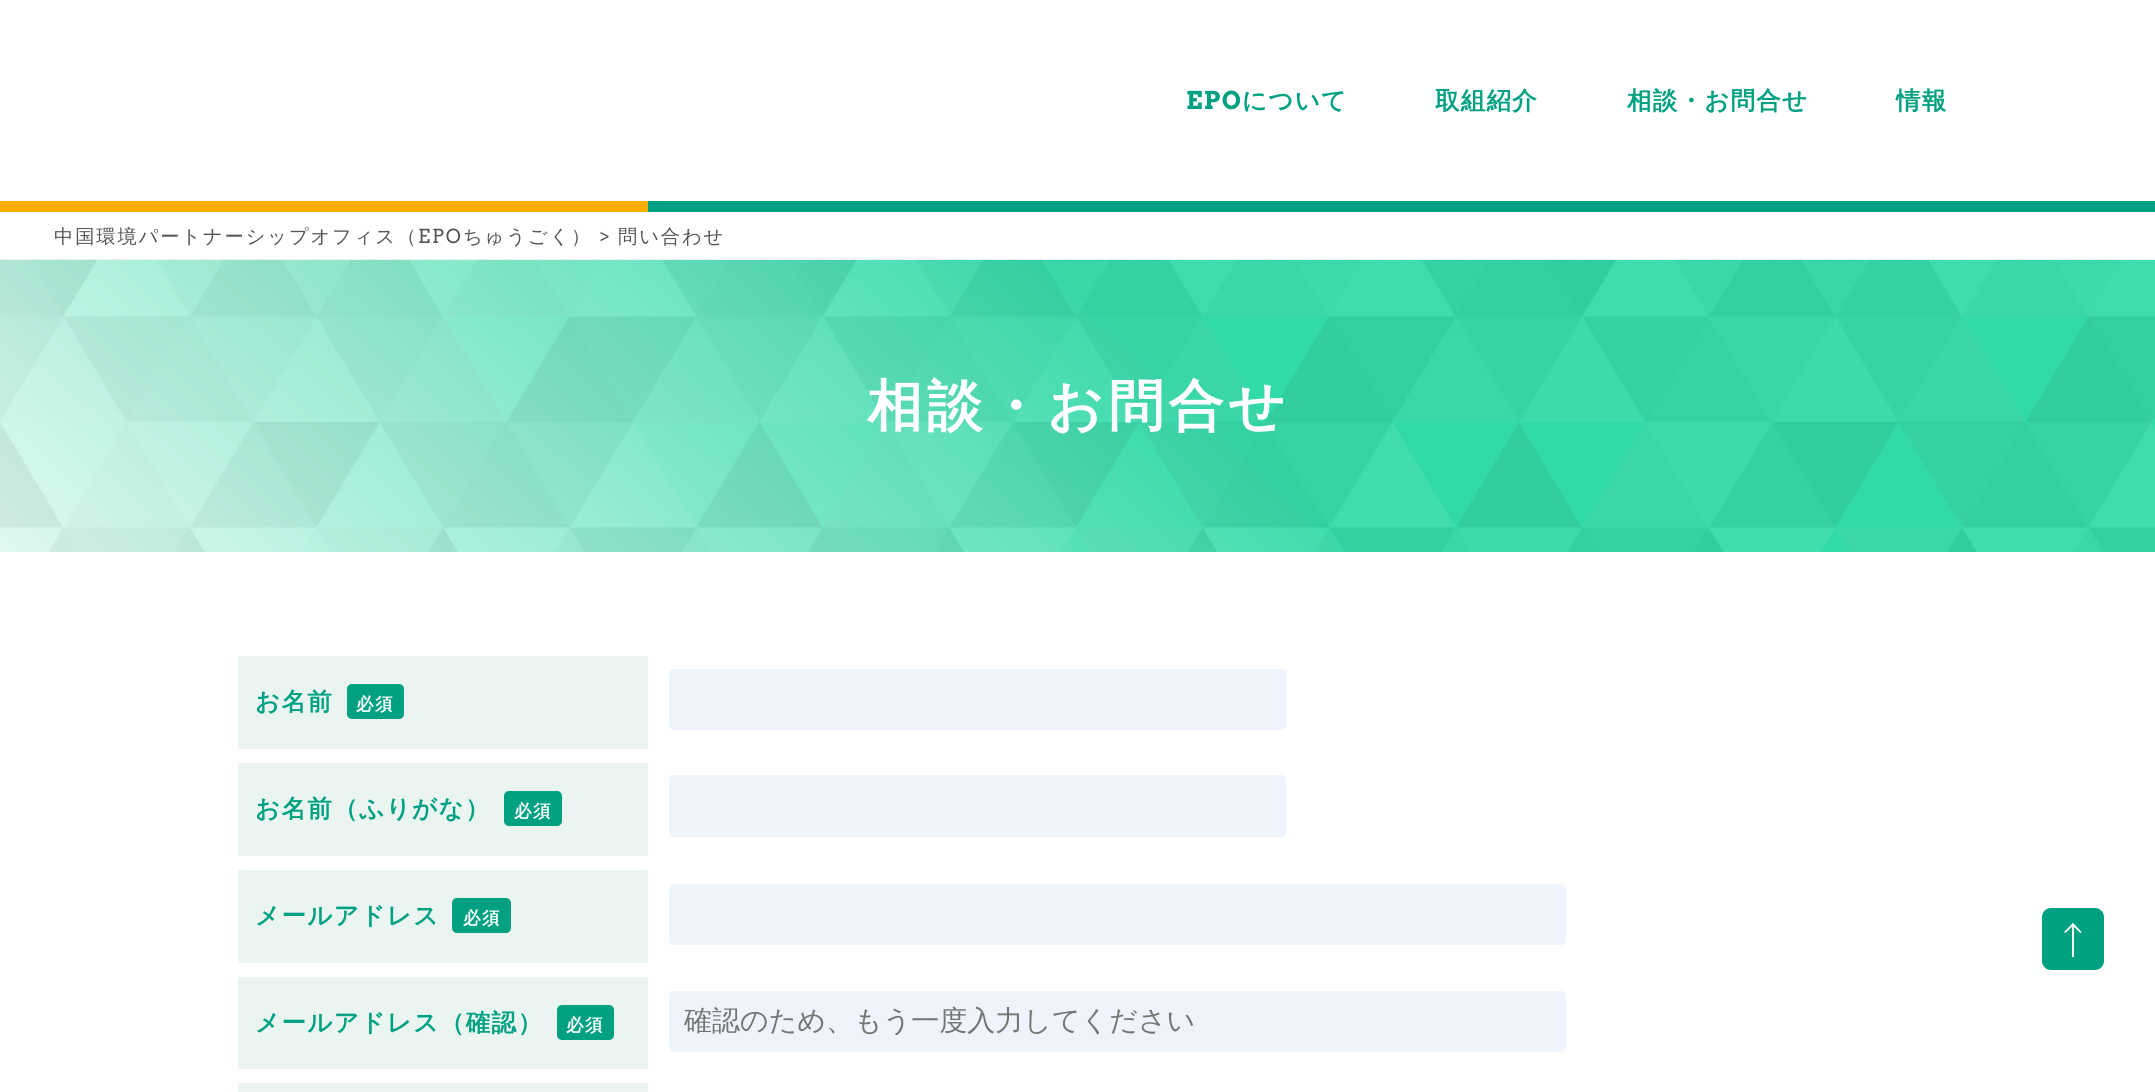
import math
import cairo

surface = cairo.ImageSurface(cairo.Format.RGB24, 2155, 1092)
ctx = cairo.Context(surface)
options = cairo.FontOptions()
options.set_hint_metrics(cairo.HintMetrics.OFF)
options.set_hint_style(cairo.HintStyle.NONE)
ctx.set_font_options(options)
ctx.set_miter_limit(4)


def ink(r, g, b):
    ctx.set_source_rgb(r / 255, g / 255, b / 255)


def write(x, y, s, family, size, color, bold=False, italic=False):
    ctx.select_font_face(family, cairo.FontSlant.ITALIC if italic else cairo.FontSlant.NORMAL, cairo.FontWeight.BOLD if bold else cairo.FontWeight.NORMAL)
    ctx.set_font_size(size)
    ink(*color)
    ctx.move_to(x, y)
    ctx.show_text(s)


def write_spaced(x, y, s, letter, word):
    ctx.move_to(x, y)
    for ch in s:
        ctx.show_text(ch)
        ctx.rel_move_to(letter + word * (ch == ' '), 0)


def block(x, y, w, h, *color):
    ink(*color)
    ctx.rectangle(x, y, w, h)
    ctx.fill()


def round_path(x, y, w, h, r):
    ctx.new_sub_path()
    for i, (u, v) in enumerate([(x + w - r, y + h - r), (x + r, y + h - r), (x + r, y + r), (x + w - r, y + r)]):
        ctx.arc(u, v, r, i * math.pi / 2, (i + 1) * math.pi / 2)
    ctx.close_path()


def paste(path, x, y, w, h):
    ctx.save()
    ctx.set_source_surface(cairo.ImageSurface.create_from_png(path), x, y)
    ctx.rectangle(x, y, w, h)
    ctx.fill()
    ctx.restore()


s1 = dict(family="WenQuanYi Zen Hei Medium", size=28, color=(117, 117, 117))

ink(255, 255, 255)
ctx.paint()
block(648, 201, 1507, 11, 0, 161, 129)
ctx.select_font_face("Arvo", cairo.FontSlant.NORMAL, cairo.FontWeight.BOLD)
ctx.set_font_size(24.5)
write_spaced(1186, 109, "EPO", 1.25, 0)
ctx.select_font_face("WenQuanYi Zen Hei", cairo.FontSlant.NORMAL, cairo.FontWeight.BOLD)
write_spaced(1242, 109, "について", 1.25, 0)
write_spaced(1435, 109, "取組紹介", 1.25, 0)
write_spaced(1627, 109, "相談・お問合せ", 1.25, 0)
write_spaced(1896, 109, "情報", 1.25, 0)
block(0, 201, 648, 11, 255, 173, 0)
ctx.new_path()
ctx.move_to(0, 260)
ctx.line_to(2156, 260)
ink(223, 223, 223)
ctx.set_line_width(1.8)
ctx.set_dash([1.75, 1.75])
ctx.stroke()
ctx.select_font_face("WenQuanYi Zen Hei Medium")
ctx.set_font_size(19.25)
ink(85, 85, 85)
write_spaced(54, 243, "中国環境パートナーシップオフィス（", 1.9, 0)
ctx.select_font_face("Arvo")
write_spaced(418, 243, "EPO", 1.9, 0)
ctx.select_font_face("WenQuanYi Zen Hei Medium")
write_spaced(463, 243, "ちゅうごく）", 1.9, 0)
ctx.select_font_face("Arvo")
write_spaced(599, 243, ">", 1.9, 0)
ctx.select_font_face("WenQuanYi Zen Hei Medium")
write_spaced(618, 243, "問い合わせ", 1.9, 0)
paste("pic1.png", 0, 260, 2155, 292)
ctx.select_font_face("WenQuanYi Zen Hei", cairo.FontSlant.NORMAL, cairo.FontWeight.BOLD)
ctx.set_font_size(55.5)
ink(255, 255, 255)
write_spaced(867, 425, "相談・お問合せ", 4.5, 0)
block(238, 656, 410, 93, 234, 245, 242)
ctx.set_font_size(24.5)
ink(0, 161, 129)
write_spaced(255, 710, "お名前", 1.4, 0)
round_path(347, 684, 57, 35, 5)
ctx.fill()
ctx.set_font_size(17.5)
ink(255, 255, 255)
write_spaced(356, 710, "必須", 1.4, 0)
ink(239, 243, 251)
round_path(669, 669, 617, 61, 5)
ctx.fill()
block(238, 763, 410, 93, 234, 245, 242)
ctx.set_font_size(24.5)
ink(0, 161, 129)
write_spaced(255, 817, "お名前（ふりがな）", 1.4, 0)
round_path(504, 791, 58, 35, 5)
ctx.fill()
ctx.set_font_size(17.5)
ink(255, 255, 255)
write_spaced(514, 817, "必須", 1.4, 0)
ink(239, 243, 251)
round_path(669, 775, 617, 62, 5)
ctx.fill()
block(238, 870, 410, 93, 234, 245, 242)
ctx.set_font_size(24.5)
ink(0, 161, 129)
write_spaced(255, 924, "メールアドレス", 1.4, 0)
round_path(452, 898, 59, 35, 5)
ctx.fill()
ctx.set_font_size(17.5)
ink(255, 255, 255)
write_spaced(463, 924, "必須", 1.4, 0)
ink(239, 243, 251)
round_path(669, 884, 897, 61, 5)
ctx.fill()
block(238, 977, 410, 92, 234, 245, 242)
ctx.set_font_size(24.5)
ink(0, 161, 129)
write_spaced(255, 1031, "メールアドレス（確認）", 1.4, 0)
round_path(557, 1005, 57, 35, 5)
ctx.fill()
ctx.set_font_size(17.5)
ink(255, 255, 255)
write_spaced(566, 1031, "必須", 1.4, 0)
ink(239, 243, 251)
round_path(669, 991, 897, 61, 5)
ctx.fill()
write(684, 1030, "確認のため、もう一度入力してください", **s1)
block(238, 1083, 410, 9, 234, 245, 242)
ink(0, 161, 129)
round_path(2042, 908, 62, 62, 9)
ctx.fill()
block(2072, 926, 2, 31, 255, 255, 255)
ctx.new_path()
ctx.move_to(2064, 932)
ctx.line_to(2073, 923)
ctx.line_to(2074, 924.5)
ctx.line_to(2065.5, 933)
ctx.close_path()
ctx.fill()
ctx.new_path()
ctx.move_to(2071.5, 924.5)
ctx.line_to(2073, 923)
ctx.line_to(2081.5, 932)
ctx.line_to(2080.5, 933)
ctx.close_path()
ctx.fill()
surface.write_to_png("screenshot.png")
